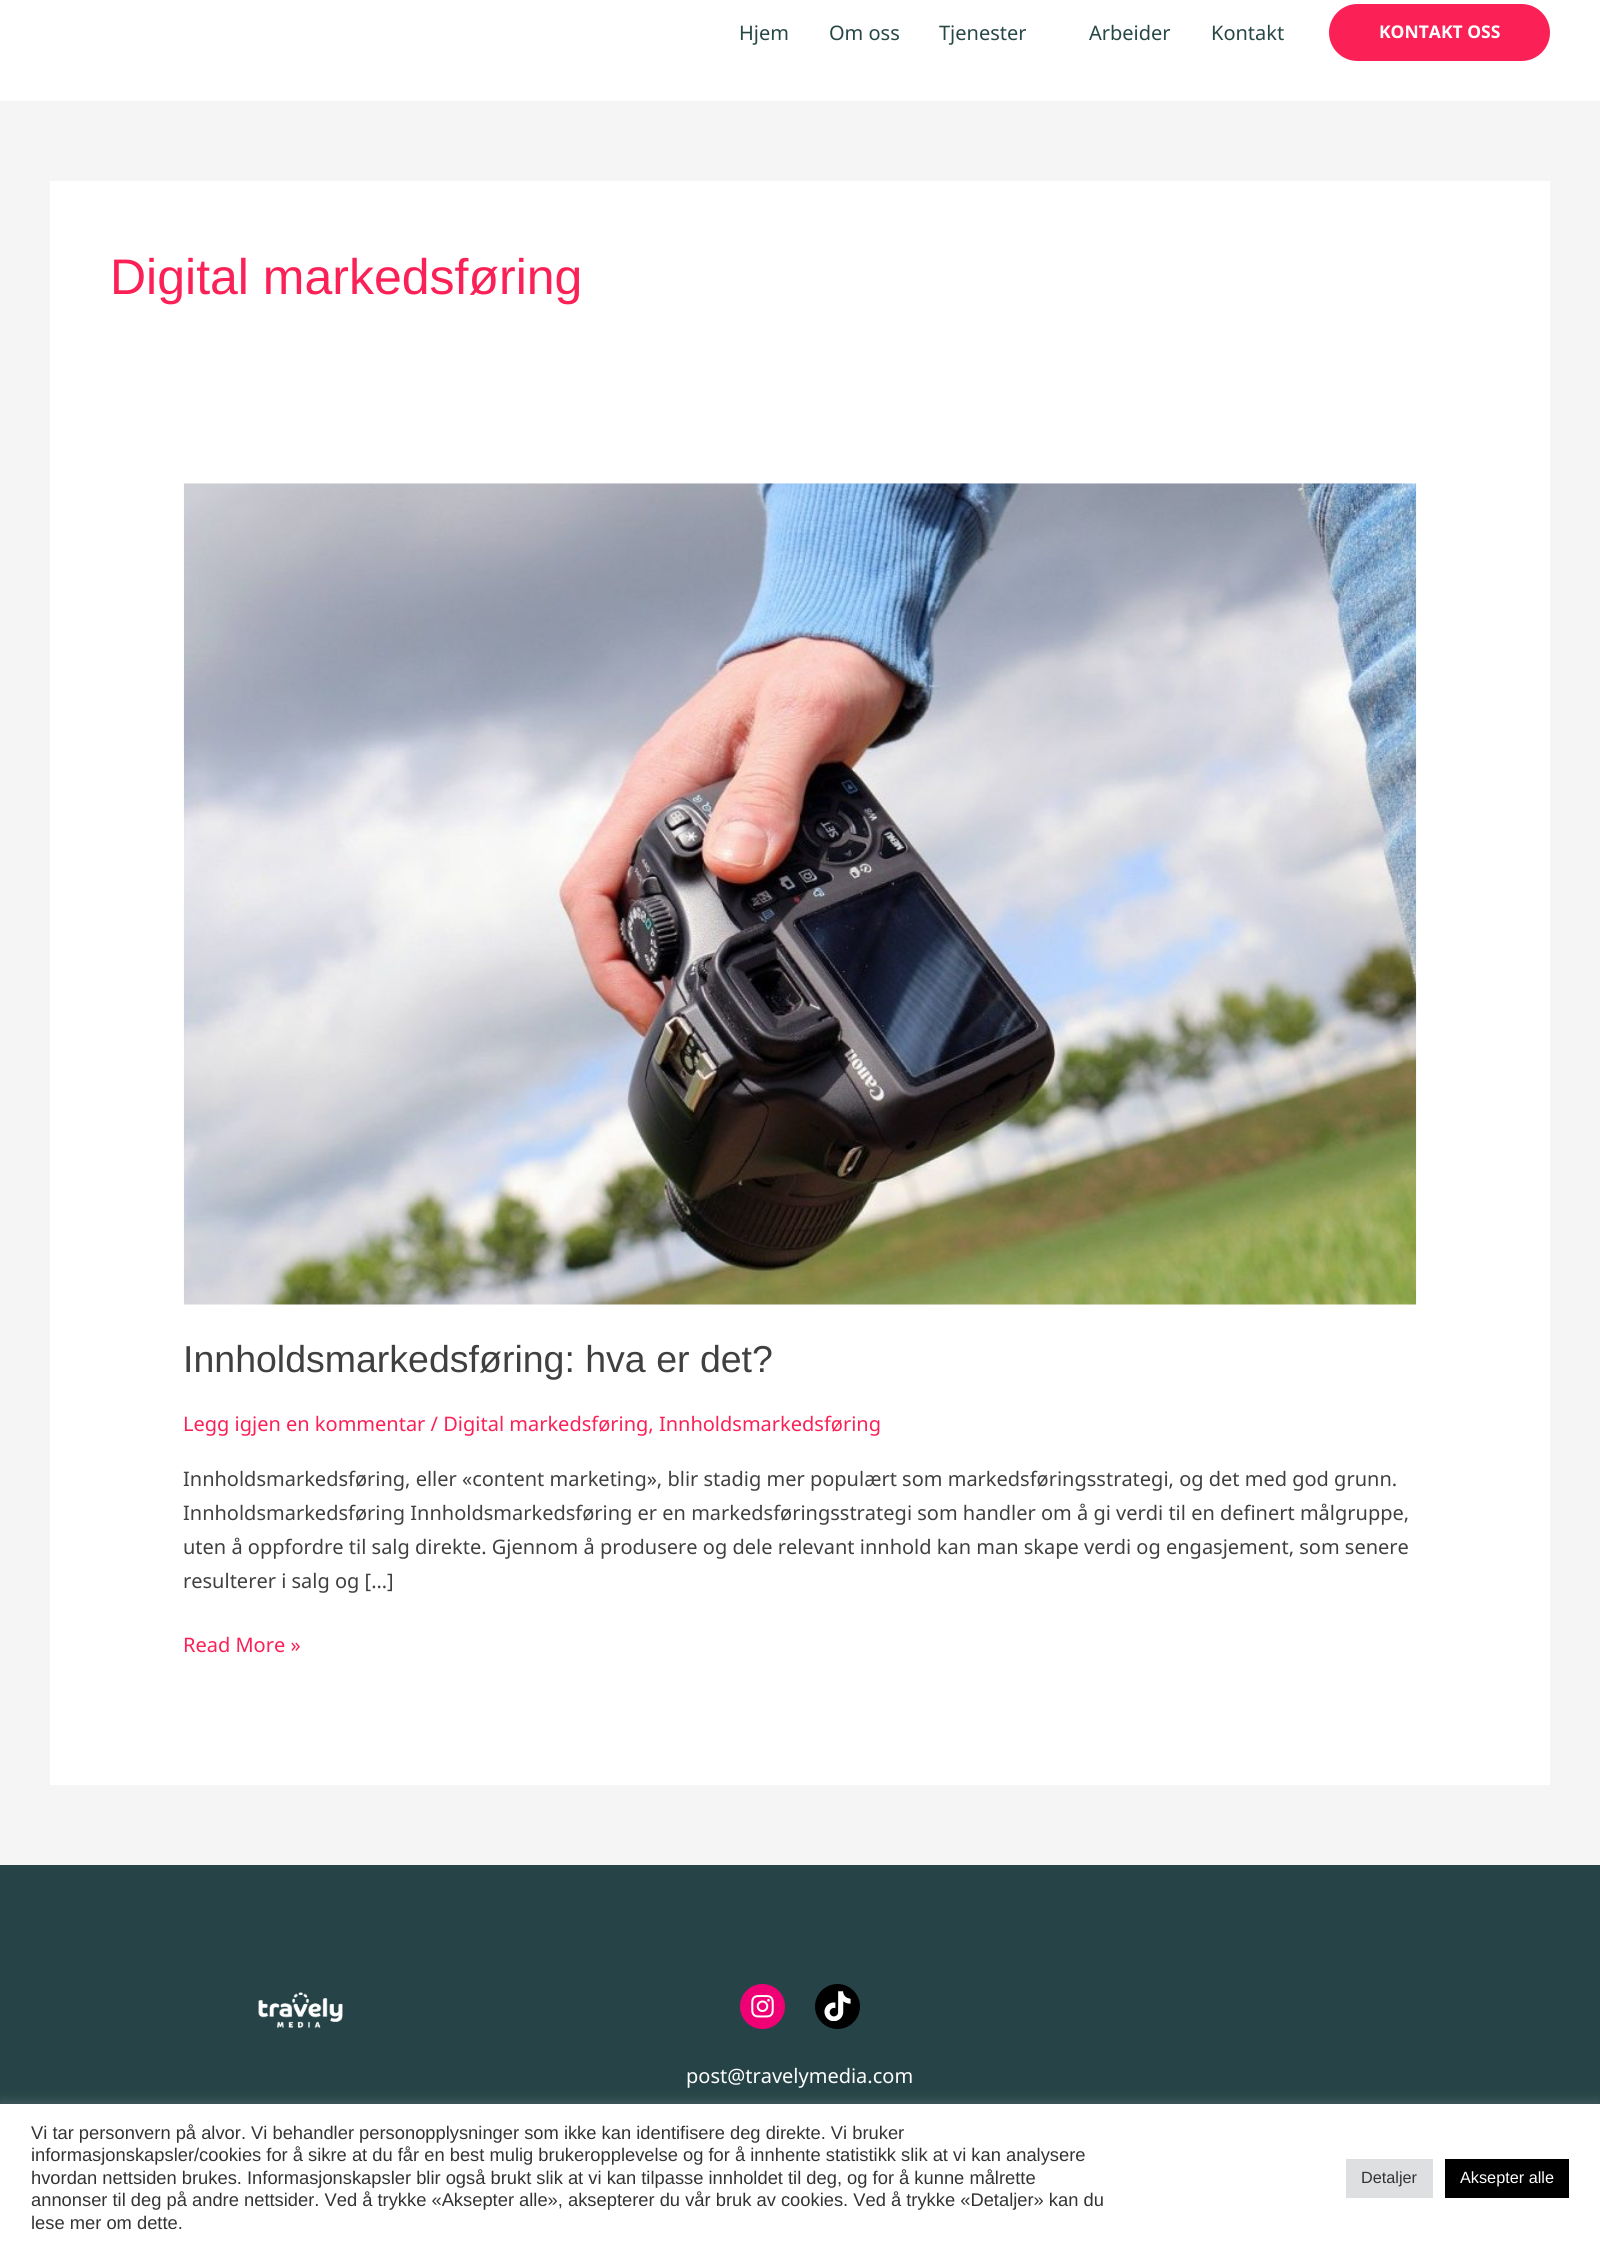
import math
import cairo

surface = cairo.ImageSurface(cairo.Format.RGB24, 1600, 2251)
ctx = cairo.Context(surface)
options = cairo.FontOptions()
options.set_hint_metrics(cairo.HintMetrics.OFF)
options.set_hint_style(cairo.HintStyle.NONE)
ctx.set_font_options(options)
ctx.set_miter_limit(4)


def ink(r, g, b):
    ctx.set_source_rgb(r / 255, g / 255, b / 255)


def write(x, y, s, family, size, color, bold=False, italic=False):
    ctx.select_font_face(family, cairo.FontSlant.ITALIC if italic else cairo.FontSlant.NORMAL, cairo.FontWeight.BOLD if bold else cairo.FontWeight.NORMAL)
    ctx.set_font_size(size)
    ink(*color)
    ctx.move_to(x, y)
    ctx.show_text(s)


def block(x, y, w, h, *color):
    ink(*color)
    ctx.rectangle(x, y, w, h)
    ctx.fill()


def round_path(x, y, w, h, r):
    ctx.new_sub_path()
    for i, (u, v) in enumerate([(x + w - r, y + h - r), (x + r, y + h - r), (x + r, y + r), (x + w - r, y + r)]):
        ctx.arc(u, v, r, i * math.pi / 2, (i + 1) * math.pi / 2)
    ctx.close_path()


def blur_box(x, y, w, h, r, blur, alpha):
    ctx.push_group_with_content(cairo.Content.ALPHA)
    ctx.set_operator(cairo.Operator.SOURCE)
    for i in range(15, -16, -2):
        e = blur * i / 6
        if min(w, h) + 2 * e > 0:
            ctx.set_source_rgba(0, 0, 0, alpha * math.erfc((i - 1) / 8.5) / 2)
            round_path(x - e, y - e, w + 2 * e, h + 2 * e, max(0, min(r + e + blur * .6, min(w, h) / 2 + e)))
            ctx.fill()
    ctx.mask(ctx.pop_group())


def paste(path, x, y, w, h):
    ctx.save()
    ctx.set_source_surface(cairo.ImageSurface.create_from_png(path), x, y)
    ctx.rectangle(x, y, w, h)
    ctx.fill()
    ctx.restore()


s1 = dict(family="Noto Sans", size=20, color=(38, 71, 68))
s2 = dict(family="Noto Sans", size=17.5, color=(255, 255, 255), bold=True)
s3 = dict(family="Liberation Sans", size=50, color=(251, 32, 86))
s4 = dict(family="Liberation Sans", size=37.5, color=(64, 64, 64))
s5 = dict(family="Noto Sans", size=20, color=(251, 32, 86))
s6 = dict(family="Noto Sans", size=20, color=(64, 64, 64))
s7 = dict(family="Noto Sans", size=20, color=(255, 255, 255))
s8 = dict(family="Liberation Sans", size=18.33, color=(51, 51, 51))
s9 = dict(family="Liberation Sans", size=16.25, color=(51, 51, 51))
s10 = dict(family="Liberation Sans", size=16.25, color=(255, 255, 255))

ink(245, 245, 245)
ctx.paint()
block(0, 0, 1600, 101, 255, 255, 255)
write(739, 40, "Hjem", **s1)
write(829, 40, "Om oss", **s1)
write(939, 40, "Tjenester", **s1)
write(1089, 40, "Arbeider", **s1)
write(1211, 40, "Kontakt", **s1)
ink(251, 32, 86)
round_path(1329, 4, 221, 57, 28.5)
ctx.fill()
write(1379, 38, "KONTAKT OSS", **s2)
block(50, 181, 1500, 1604, 255, 255, 255)
write(110, 294, "Digital markedsføring", **s3)
paste("pic1.png", 183, 483, 1234, 822)
write(183, 1372, "Innholdsmarkedsføring: hva er det?", **s4)
write(183, 1431, "Legg igjen en kommentar / Digital markedsføring, Innholdsmarkedsføring", **s5)
write(183, 1486, "Innholdsmarkedsføring, eller «content marketing», blir stadig mer populært som markedsføringsstrategi, og det med god grunn.", **s6)
write(183, 1520, "Innholdsmarkedsføring Innholdsmarkedsføring er en markedsføringsstrategi som handler om å gi verdi til en definert målgruppe,", **s6)
write(183, 1554, "uten å oppfordre til salg direkte. Gjennom å produsere og dele relevant innhold kan man skape verdi og engasjement, som senere", **s6)
write(183, 1588, "resulterer i salg og […]", **s6)
write(183, 1652, "Read More »", **s5)
block(0, 1865, 1600, 239, 38, 68, 71)
paste("pic2.png", 258, 1992, 85, 36)
ink(240, 0, 117)
ctx.arc(762.5, 2006.5, 22.5, 0, 2 * math.pi)
ctx.fill()
paste("pic3.png", 751, 1995, 23, 23)
ink(0, 0, 0)
ctx.arc(837.5, 2006.5, 22.5, 0, 2 * math.pi)
ctx.fill()
paste("pic4.png", 824, 1991, 27, 30)
write(686, 2083, "post@travelymedia.com", **s7)
ink(172, 171, 171)
blur_box(0, 2103, 1600, 147, 0, 6, 0.3)
block(0, 2104, 1600, 147, 255, 255, 255)
write(31, 2139, "Vi tar personvern på alvor. Vi behandler personopplysninger som ikke kan identifisere deg direkte. Vi bruker", **s8)
write(31, 2161, "informasjonskapsler/cookies for å sikre at du får en best mulig brukeropplevelse og for å innhente statistikk slik at vi kan analysere", **s8)
write(31, 2184, "hvordan nettsiden brukes. Informasjonskapsler blir også brukt slik at vi kan tilpasse innholdet til deg, og for å kunne målrette", **s8)
write(31, 2206, "annonser til deg på andre nettsider. Ved å trykke «Aksepter alle», aksepterer du vår bruk av cookies. Ved å trykke «Detaljer» kan du", **s8)
write(31, 2229, "lese mer om dette.", **s8)
block(1346, 2159, 87, 39, 222, 223, 224)
write(1361, 2183, "Detaljer", **s9)
block(1445, 2159, 124, 39, 0, 0, 0)
write(1460, 2183, "Aksepter alle", **s10)
surface.write_to_png("screenshot.png")
